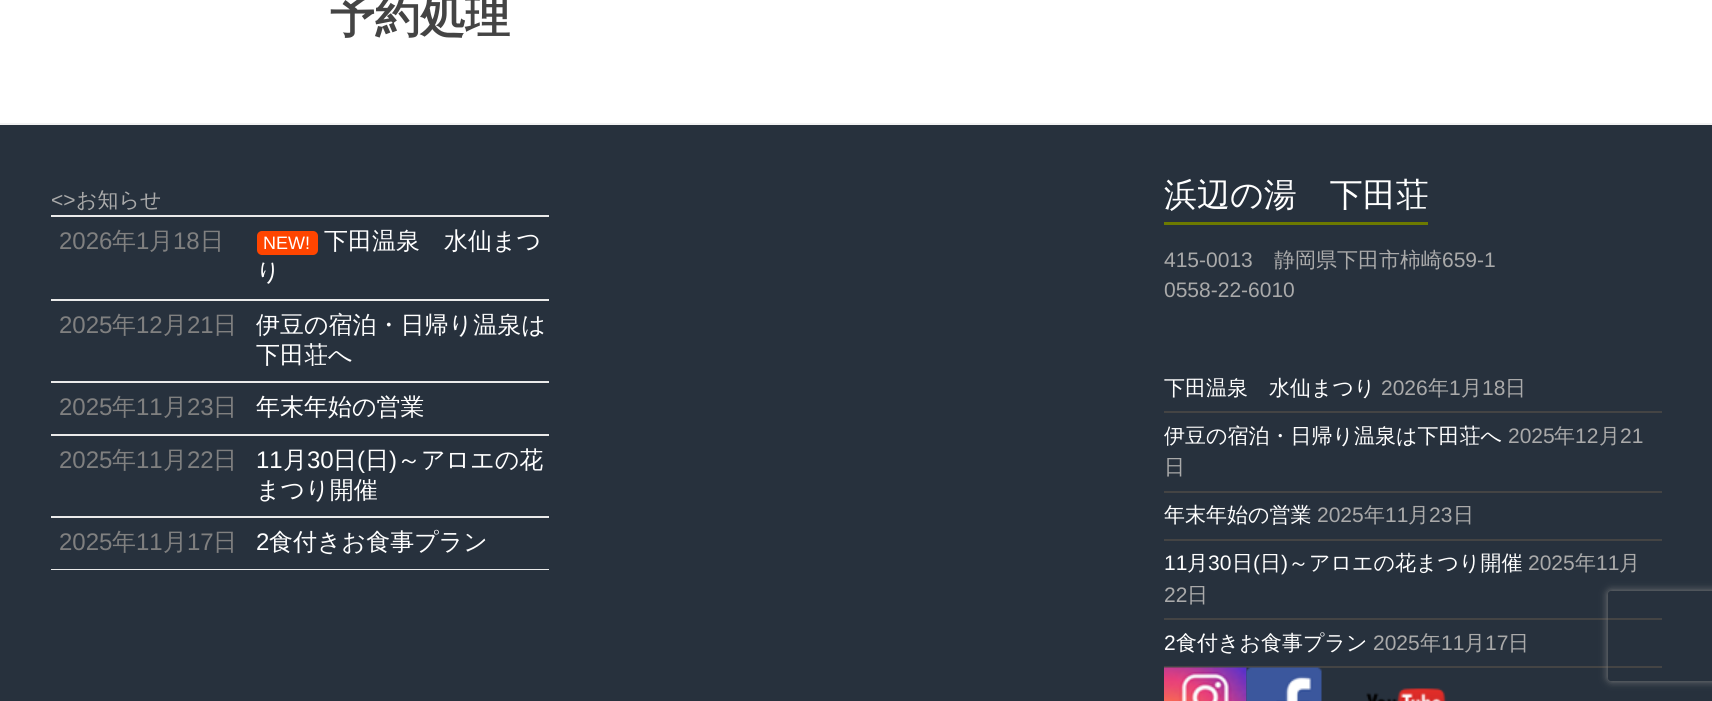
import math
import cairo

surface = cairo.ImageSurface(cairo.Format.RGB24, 1712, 701)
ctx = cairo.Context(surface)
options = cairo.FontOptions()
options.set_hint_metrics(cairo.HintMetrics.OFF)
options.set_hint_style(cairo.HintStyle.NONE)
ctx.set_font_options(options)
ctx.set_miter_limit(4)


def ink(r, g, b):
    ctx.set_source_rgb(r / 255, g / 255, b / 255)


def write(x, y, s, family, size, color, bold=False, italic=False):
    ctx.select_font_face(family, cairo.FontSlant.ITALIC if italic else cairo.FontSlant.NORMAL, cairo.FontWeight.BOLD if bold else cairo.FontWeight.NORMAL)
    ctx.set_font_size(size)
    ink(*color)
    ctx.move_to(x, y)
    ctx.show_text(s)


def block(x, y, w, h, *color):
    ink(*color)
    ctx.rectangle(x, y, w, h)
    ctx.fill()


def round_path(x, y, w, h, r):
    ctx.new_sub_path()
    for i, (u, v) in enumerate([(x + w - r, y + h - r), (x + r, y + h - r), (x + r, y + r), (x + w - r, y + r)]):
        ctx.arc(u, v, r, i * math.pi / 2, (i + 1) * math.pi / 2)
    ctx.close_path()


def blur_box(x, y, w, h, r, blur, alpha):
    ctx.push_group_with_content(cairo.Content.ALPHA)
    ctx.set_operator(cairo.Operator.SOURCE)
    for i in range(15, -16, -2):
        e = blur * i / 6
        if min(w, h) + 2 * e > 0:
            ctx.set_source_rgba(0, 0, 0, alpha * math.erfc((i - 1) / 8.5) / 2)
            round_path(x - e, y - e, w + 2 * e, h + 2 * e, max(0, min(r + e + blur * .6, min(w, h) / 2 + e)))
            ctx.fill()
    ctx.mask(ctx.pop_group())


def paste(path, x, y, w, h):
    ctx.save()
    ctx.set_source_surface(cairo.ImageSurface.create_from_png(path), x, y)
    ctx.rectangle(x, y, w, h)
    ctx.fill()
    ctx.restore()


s1 = dict(family="WenQuanYi Zen Hei", size=45, color=(68, 68, 68), bold=True)
s2 = dict(family="Liberation Sans", size=21, color=(170, 170, 170))
s3 = dict(family="WenQuanYi Zen Hei Medium", size=21, color=(170, 170, 170))
s4 = dict(family="Liberation Sans", size=24, color=(128, 128, 128))
s5 = dict(family="WenQuanYi Zen Hei Medium", size=24, color=(128, 128, 128))
s6 = dict(family="Liberation Sans", size=18, color=(255, 255, 255))
s7 = dict(family="WenQuanYi Zen Hei Medium", size=24, color=(255, 255, 255))
s8 = dict(family="Liberation Sans", size=24, color=(255, 255, 255))
s9 = dict(family="WenQuanYi Zen Hei Medium", size=33, color=(255, 255, 255))
s10 = dict(family="WenQuanYi Zen Hei Medium", size=21, color=(255, 255, 255))
s11 = dict(family="Liberation Sans", size=21, color=(255, 255, 255))

ink(255, 255, 255)
ctx.paint()
write(330, 32, "予約処理", **s1)
block(0, 125, 1712, 576, 39, 49, 61)
block(0, 123, 1712, 2, 242, 242, 242)
write(51, 207, "<>", **s2)
write(76, 207, "お知らせ", **s3)
block(51, 215, 498, 2, 234, 234, 234)
write(59, 249, "2026", **s4)
write(112, 249, "年", **s5)
write(136, 249, "1", **s4)
write(149, 249, "月", **s5)
write(173, 249, "18", **s4)
write(200, 249, "日", **s5)
ink(255, 69, 0)
round_path(257, 231, 61, 24, 5)
ctx.fill()
write(263, 249, "NEW!", **s6)
write(324, 249, "下田温泉　水仙まつ", **s7)
write(256, 280, "り", **s7)
block(51, 299, 498, 2, 234, 234, 234)
write(59, 333, "2025", **s4)
write(112, 333, "年", **s5)
write(136, 333, "12", **s4)
write(163, 333, "月", **s5)
write(187, 333, "21", **s4)
write(213, 333, "日", **s5)
write(256, 333, "伊豆の宿泊・日帰り温泉は", **s7)
write(256, 363, "下田荘へ", **s7)
block(51, 381, 498, 2, 234, 234, 234)
write(59, 415, "2025", **s4)
write(112, 415, "年", **s5)
write(136, 415, "11", **s4)
write(163, 415, "月", **s5)
write(187, 415, "23", **s4)
write(213, 415, "日", **s5)
write(256, 415, "年末年始の営業", **s7)
block(51, 434, 498, 2, 234, 234, 234)
write(59, 468, "2025", **s4)
write(112, 468, "年", **s5)
write(136, 468, "11", **s4)
write(163, 468, "月", **s5)
write(187, 468, "22", **s4)
write(213, 468, "日", **s5)
write(256, 468, "11", **s8)
write(283, 468, "月", **s7)
write(307, 468, "30", **s8)
write(333, 468, "日", **s7)
write(357, 468, "(", **s8)
write(365, 468, "日", **s7)
write(389, 468, ")", **s8)
write(397, 468, "～アロエの花", **s7)
write(256, 498, "まつり開催", **s7)
block(51, 516, 498, 2, 234, 234, 234)
write(59, 550, "2025", **s4)
write(112, 550, "年", **s5)
write(136, 550, "11", **s4)
write(163, 550, "月", **s5)
write(187, 550, "17", **s4)
write(213, 550, "日", **s5)
write(256, 550, "2", **s8)
write(269, 550, "食付きお食事プラン", **s7)
block(51, 569, 498, 1, 234, 234, 234)
write(1164, 206, "浜辺の湯　下田荘", **s9)
block(1164, 222, 264, 3, 108, 122, 0)
write(1164, 267, "415-0013", **s2)
write(1274, 267, "静岡県下田市柿崎", **s3)
write(1442, 267, "659-1", **s2)
write(1164, 297, "0558-22-6010", **s2)
block(1164, 411, 498, 2, 68, 68, 68)
write(1164, 395, "下田温泉　水仙まつり", **s10)
write(1381, 395, "2026", **s2)
write(1428, 395, "年", **s3)
write(1449, 395, "1", **s2)
write(1461, 395, "月", **s3)
write(1482, 395, "18", **s2)
write(1505, 395, "日", **s3)
block(1164, 491, 498, 2, 68, 68, 68)
write(1164, 443, "伊豆の宿泊・日帰り温泉は下田荘へ", **s10)
write(1508, 443, "2025", **s2)
write(1554, 443, "年", **s3)
write(1575, 443, "12", **s2)
write(1599, 443, "月", **s3)
write(1620, 443, "21", **s2)
write(1164, 474, "日", **s3)
block(1164, 539, 498, 2, 68, 68, 68)
write(1164, 522, "年末年始の営業", **s10)
write(1317, 522, "2025", **s2)
write(1364, 522, "年", **s3)
write(1385, 522, "11", **s2)
write(1408, 522, "月", **s3)
write(1429, 522, "23", **s2)
write(1453, 522, "日", **s3)
block(1164, 618, 498, 2, 68, 68, 68)
write(1164, 570, "11", **s11)
write(1187, 570, "月", **s10)
write(1208, 570, "30", **s11)
write(1232, 570, "日", **s10)
write(1253, 570, "(", **s11)
write(1260, 570, "日", **s10)
write(1281, 570, ")", **s11)
write(1288, 570, "～アロエの花まつり開催", **s10)
write(1528, 570, "2025", **s2)
write(1575, 570, "年", **s3)
write(1596, 570, "11", **s2)
write(1619, 570, "月", **s3)
write(1164, 602, "22", **s2)
write(1187, 602, "日", **s3)
block(1164, 666, 498, 2, 68, 68, 68)
write(1164, 650, "2", **s11)
write(1176, 650, "食付きお食事プラン", **s10)
write(1373, 650, "2025", **s2)
write(1420, 650, "年", **s3)
write(1441, 650, "11", **s2)
write(1464, 650, "月", **s3)
write(1485, 650, "17", **s2)
write(1508, 650, "日", **s3)
paste("pic1.png", 1164, 667, 83, 34)
paste("pic2.png", 1246, 667, 76, 34)
paste("pic3.png", 1366, 688, 81, 13)
ctx.save()
ctx.set_fill_rule(cairo.FillRule.EVEN_ODD)
ctx.new_path()
ctx.move_to(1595, 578)
ctx.line_to(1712, 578)
ctx.line_to(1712, 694)
ctx.line_to(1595, 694)
ctx.close_path()
ctx.move_to(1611, 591)
ctx.line_to(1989, 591)
ctx.curve_to(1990.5, 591, 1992, 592.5, 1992, 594)
ctx.line_to(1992, 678)
ctx.curve_to(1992, 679.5, 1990.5, 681, 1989, 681)
ctx.line_to(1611, 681)
ctx.curve_to(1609.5, 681, 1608, 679.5, 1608, 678)
ctx.line_to(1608, 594)
ctx.curve_to(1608, 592.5, 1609.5, 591, 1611, 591)
ctx.close_path()
ctx.clip()
ink(128, 128, 128)
blur_box(1608, 591, 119, 90, 3, 4, 1)
ctx.restore()
surface.write_to_png("screenshot.png")
